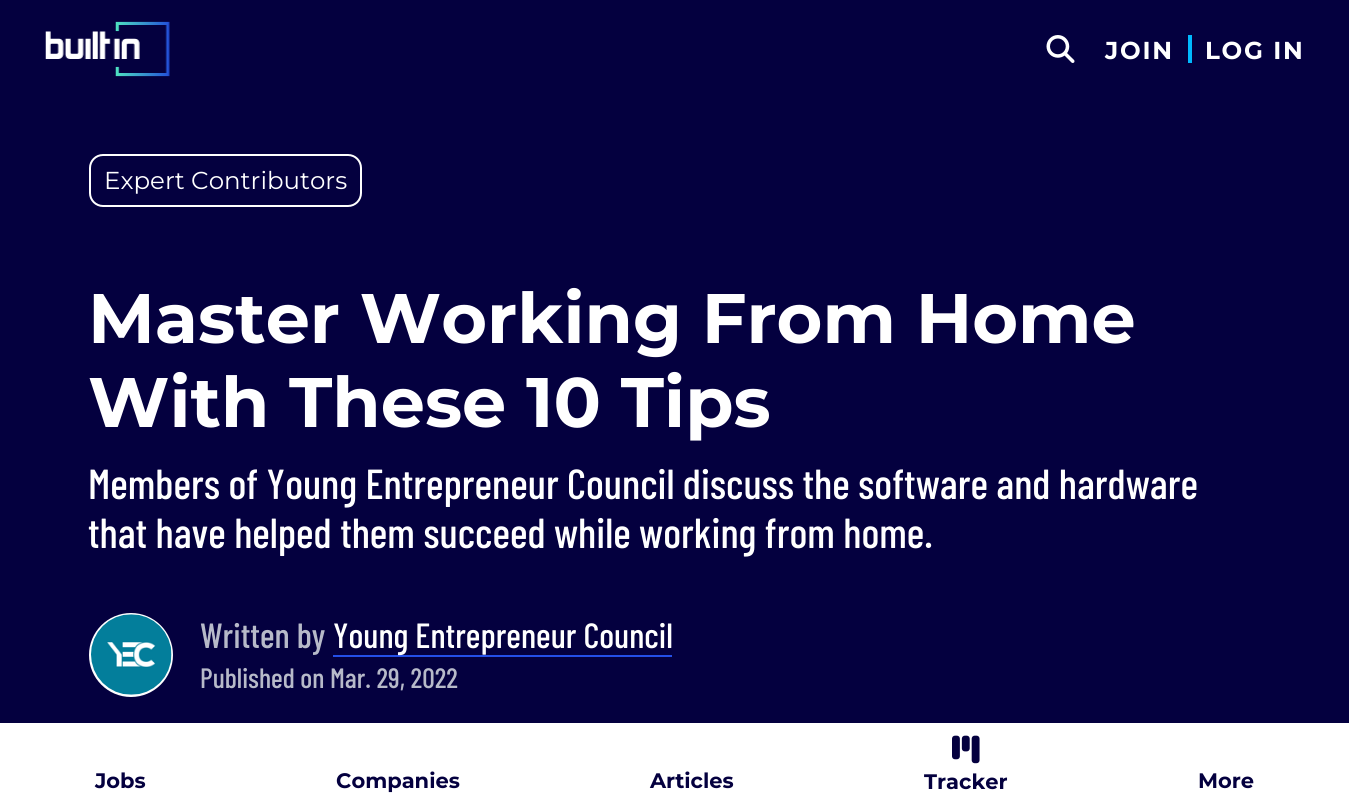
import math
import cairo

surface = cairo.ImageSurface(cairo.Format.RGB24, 1349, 806)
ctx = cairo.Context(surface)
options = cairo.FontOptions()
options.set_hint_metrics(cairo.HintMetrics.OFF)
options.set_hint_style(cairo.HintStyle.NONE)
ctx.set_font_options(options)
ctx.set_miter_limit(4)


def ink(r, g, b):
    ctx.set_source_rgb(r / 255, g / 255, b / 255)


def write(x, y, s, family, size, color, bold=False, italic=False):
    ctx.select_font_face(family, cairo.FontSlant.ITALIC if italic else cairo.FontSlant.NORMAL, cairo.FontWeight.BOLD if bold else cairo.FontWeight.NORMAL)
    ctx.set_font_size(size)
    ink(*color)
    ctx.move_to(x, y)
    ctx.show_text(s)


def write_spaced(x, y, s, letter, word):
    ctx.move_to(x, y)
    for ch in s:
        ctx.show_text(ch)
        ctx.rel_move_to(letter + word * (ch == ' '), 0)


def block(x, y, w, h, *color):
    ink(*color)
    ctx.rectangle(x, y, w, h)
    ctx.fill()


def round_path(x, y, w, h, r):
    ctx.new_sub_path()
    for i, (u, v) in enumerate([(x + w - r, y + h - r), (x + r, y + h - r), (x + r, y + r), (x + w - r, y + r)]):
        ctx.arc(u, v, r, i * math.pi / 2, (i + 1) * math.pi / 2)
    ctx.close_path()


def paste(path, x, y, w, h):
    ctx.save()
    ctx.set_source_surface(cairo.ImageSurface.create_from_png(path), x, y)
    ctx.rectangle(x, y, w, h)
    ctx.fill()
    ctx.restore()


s1 = dict(family="Montserrat Thin", size=24.5, color=(255, 255, 255))
s2 = dict(family="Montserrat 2 Thin", size=70, color=(255, 255, 255))
s3 = dict(family="Barlow Condensed Medium", size=42, color=(255, 255, 255))
s4 = dict(family="Barlow Condensed Medium", size=35, color=(183, 186, 201))
s5 = dict(family="Barlow Condensed Medium", size=35, color=(255, 255, 255))
s6 = dict(family="Barlow Condensed Medium", size=28, color=(183, 186, 201))
s7 = dict(family="Montserrat 2 Thin", size=21, color=(4, 0, 63))

ink(4, 0, 63)
ctx.paint()
paste("pic1.png", 45, 21, 125, 56)
paste("pic2.png", 1046, 35, 29, 28)
ctx.select_font_face("Montserrat 2 Thin")
ctx.set_font_size(24.5)
ink(255, 255, 255)
write_spaced(1105, 59, "JOIN", 1.75, 0)
block(1188, 35, 4, 28, 0, 185, 254)
ink(255, 255, 255)
write_spaced(1205, 59, "LOG IN", 1.75, 0)
round_path(90, 155, 271, 51, 13)
ctx.stroke()
write(104, 189, "Expert Contributors", **s1)
write(88, 343, "Master Working From Home", **s2)
write(88, 427, "With These 10 Tips", **s2)
write(88, 499, "Members of Young Entrepreneur Council discuss the software and hardware", **s3)
write(88, 548, "that have helped them succeed while working from home.", **s3)
ctx.new_path()
ctx.arc(131, 655, 42, 0, 2 * math.pi)
ctx.fill()
paste("pic3.png", 91, 614, 81, 81)
write(200, 648, "Written by", **s4)
block(333, 655, 339, 2, 36, 79, 231)
write(333, 648, "Young Entrepreneur Council", **s5)
write(200, 688, "Published on Mar. 29, 2022", **s6)
block(0, 723, 1349, 83, 255, 255, 255)
write(95, 788, "Jobs", **s7)
write(336, 788, "Companies", **s7)
write(650, 788, "Articles", **s7)
paste("pic4.png", 952, 735, 28, 29)
write(924, 789, "Tracker", **s7)
write(1198, 788, "More", **s7)
surface.write_to_png("screenshot.png")
